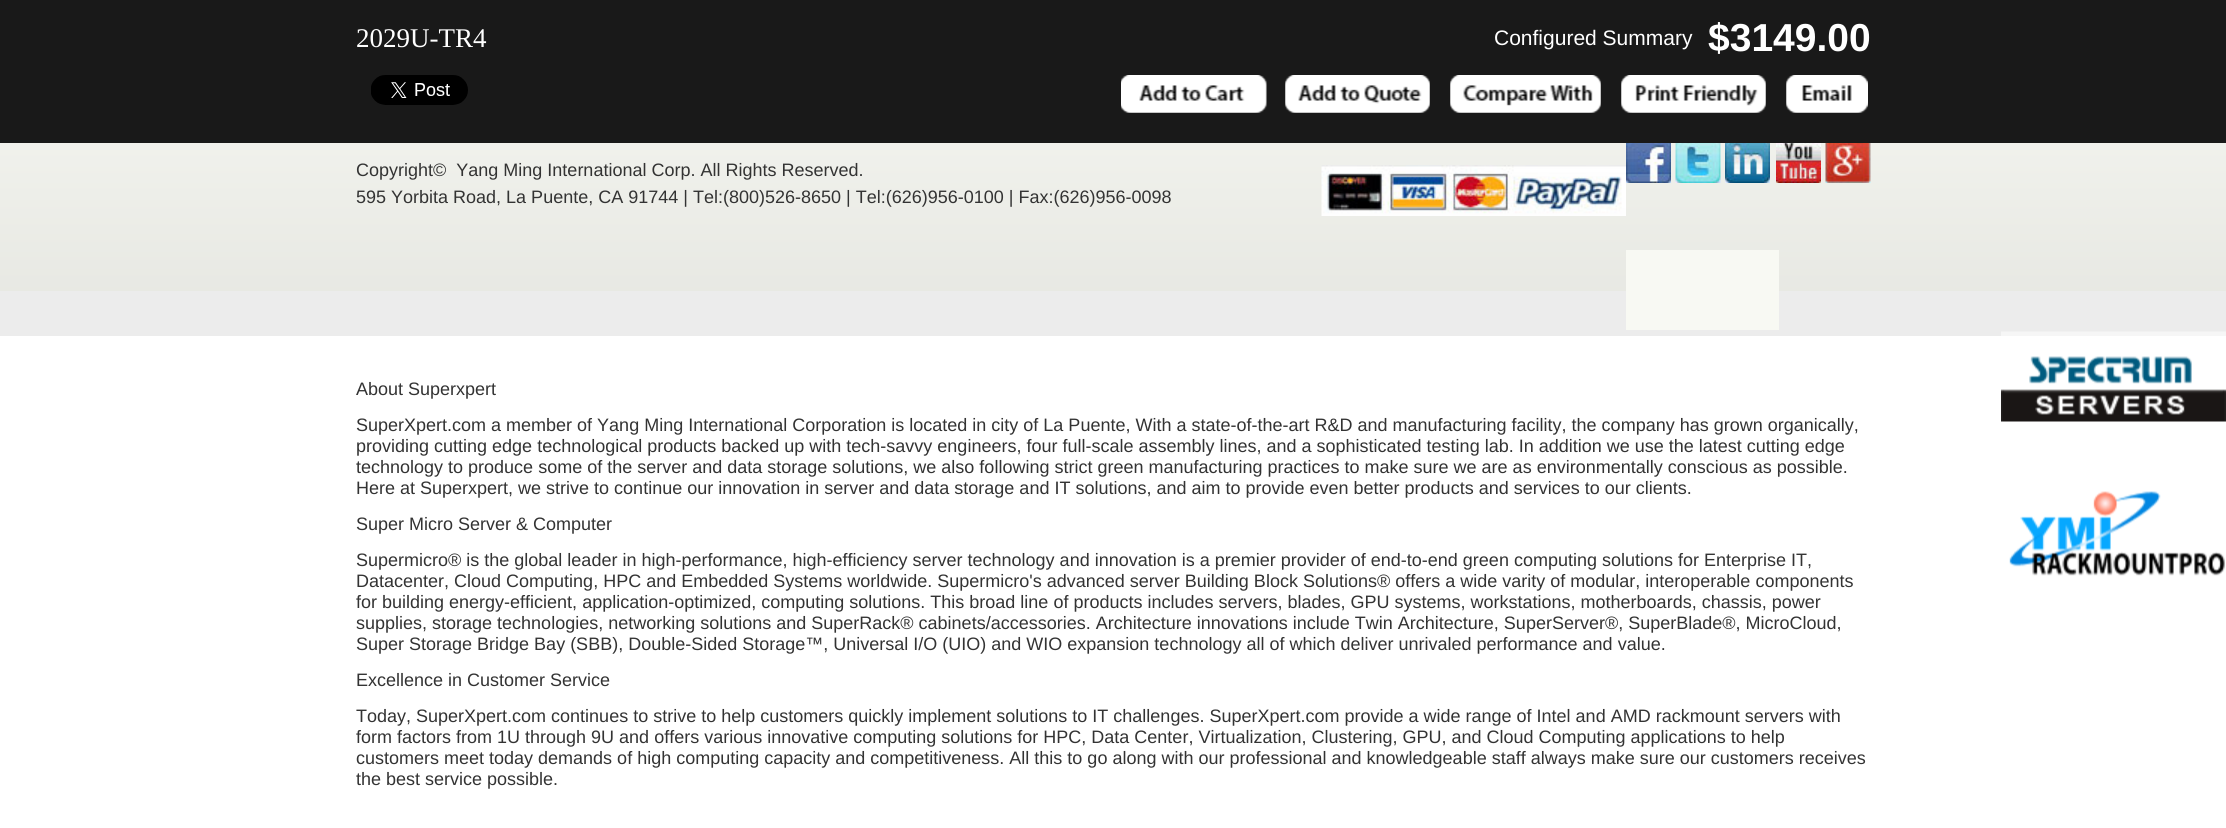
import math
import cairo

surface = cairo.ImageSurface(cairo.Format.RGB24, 2226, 828)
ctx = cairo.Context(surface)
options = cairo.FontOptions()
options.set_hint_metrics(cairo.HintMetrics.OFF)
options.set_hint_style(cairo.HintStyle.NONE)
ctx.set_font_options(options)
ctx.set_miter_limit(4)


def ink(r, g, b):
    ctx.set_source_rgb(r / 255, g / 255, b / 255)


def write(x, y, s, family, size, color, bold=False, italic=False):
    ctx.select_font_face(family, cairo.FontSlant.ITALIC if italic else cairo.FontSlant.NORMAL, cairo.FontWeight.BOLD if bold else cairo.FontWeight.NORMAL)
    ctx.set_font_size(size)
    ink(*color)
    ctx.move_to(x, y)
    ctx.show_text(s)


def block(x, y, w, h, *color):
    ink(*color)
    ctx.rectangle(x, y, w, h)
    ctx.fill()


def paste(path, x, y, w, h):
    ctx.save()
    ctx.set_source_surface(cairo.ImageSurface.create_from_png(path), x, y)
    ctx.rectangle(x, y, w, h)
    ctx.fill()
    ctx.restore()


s1 = dict(family="Liberation Serif", size=27, color=(255, 255, 255))
s2 = dict(family="Liberation Sans", size=21, color=(255, 255, 255))
s3 = dict(family="Liberation Sans", size=39, color=(255, 255, 255), bold=True)
s4 = dict(family="Liberation Sans", size=18, color=(51, 51, 51))

ink(255, 255, 255)
ctx.paint()
block(0, 0, 2226, 143, 25, 25, 25)
write(356, 47, "2029U-TR4", **s1)
write(1494, 45, "Configured Summary", **s2)
write(1708, 51, "$3149.00", **s3)
paste("pic1.png", 371, 75, 97, 30)
paste("pic2.png", 1121, 75, 146, 38)
paste("pic3.png", 1121, 75, 146, 38)
paste("pic4.png", 1285, 75, 145, 38)
paste("pic5.png", 1285, 75, 145, 38)
paste("pic6.png", 1450, 75, 151, 38)
paste("pic7.png", 1450, 75, 151, 38)
paste("pic8.png", 1621, 75, 145, 38)
paste("pic9.png", 1621, 75, 145, 38)
paste("pic10.png", 1786, 75, 82, 38)
paste("pic11.png", 1786, 75, 82, 38)
block(0, 291, 2226, 45, 236, 236, 236)
paste("pic12.png", 0, 143, 2226, 148)
write(356, 176, "Copyright©  Yang Ming International Corp. All Rights Reserved.", **s4)
write(356, 203, "595 Yorbita Road, La Puente, CA 91744 | Tel:(800)526-8650 | Tel:(626)956-0100 | Fax:(626)956-0098", **s4)
paste("pic13.png", 1321, 165, 305, 51)
paste("pic14.png", 1626, 143, 45, 40)
paste("pic15.png", 1675, 143, 46, 40)
paste("pic16.png", 1725, 143, 45, 40)
paste("pic17.png", 1776, 143, 45, 40)
paste("pic18.png", 1825, 143, 46, 40)
block(1626, 250, 153, 80, 248, 249, 243)
write(356, 395, "About Superxpert", **s4)
write(356, 431, "SuperXpert.com a member of Yang Ming International Corporation is located in city of La Puente, With a state-of-the-art R&D and manufacturing facility, the company has grown organically,", **s4)
write(356, 452, "providing cutting edge technological products backed up with tech-savvy engineers, four full-scale assembly lines, and a sophisticated testing lab. In addition we use the latest cutting edge", **s4)
write(356, 473, "technology to produce some of the server and data storage solutions, we also following strict green manufacturing practices to make sure we are as environmentally conscious as possible.", **s4)
write(356, 494, "Here at Superxpert, we strive to continue our innovation in server and data storage and IT solutions, and aim to provide even better products and services to our clients.", **s4)
write(356, 530, "Super Micro Server & Computer", **s4)
write(356, 566, "Supermicro® is the global leader in high-performance, high-efficiency server technology and innovation is a premier provider of end-to-end green computing solutions for Enterprise IT,", **s4)
write(356, 587, "Datacenter, Cloud Computing, HPC and Embedded Systems worldwide. Supermicro's advanced server Building Block Solutions® offers a wide varity of modular, interoperable components", **s4)
write(356, 608, "for building energy-efficient, application-optimized, computing solutions. This broad line of products includes servers, blades, GPU systems, workstations, motherboards, chassis, power", **s4)
write(356, 629, "supplies, storage technologies, networking solutions and SuperRack® cabinets/accessories. Architecture innovations include Twin Architecture, SuperServer®, SuperBlade®, MicroCloud,", **s4)
write(356, 650, "Super Storage Bridge Bay (SBB), Double-Sided Storage™, Universal I/O (UIO) and WIO expansion technology all of which deliver unrivaled performance and value.", **s4)
write(356, 686, "Excellence in Customer Service", **s4)
write(356, 722, "Today, SuperXpert.com continues to strive to help customers quickly implement solutions to IT challenges. SuperXpert.com provide a wide range of Intel and AMD rackmount servers with", **s4)
write(356, 743, "form factors from 1U through 9U and offers various innovative computing solutions for HPC, Data Center, Virtualization, Clustering, GPU, and Cloud Computing applications to help", **s4)
write(356, 764, "customers meet today demands of high computing capacity and competitiveness. All this to go along with our professional and knowledgeable staff always make sure our customers receives", **s4)
write(356, 785, "the best service possible.", **s4)
paste("pic19.png", 2001, 331, 225, 91)
paste("pic20.png", 2009, 491, 216, 85)
surface.write_to_png("screenshot.png")
